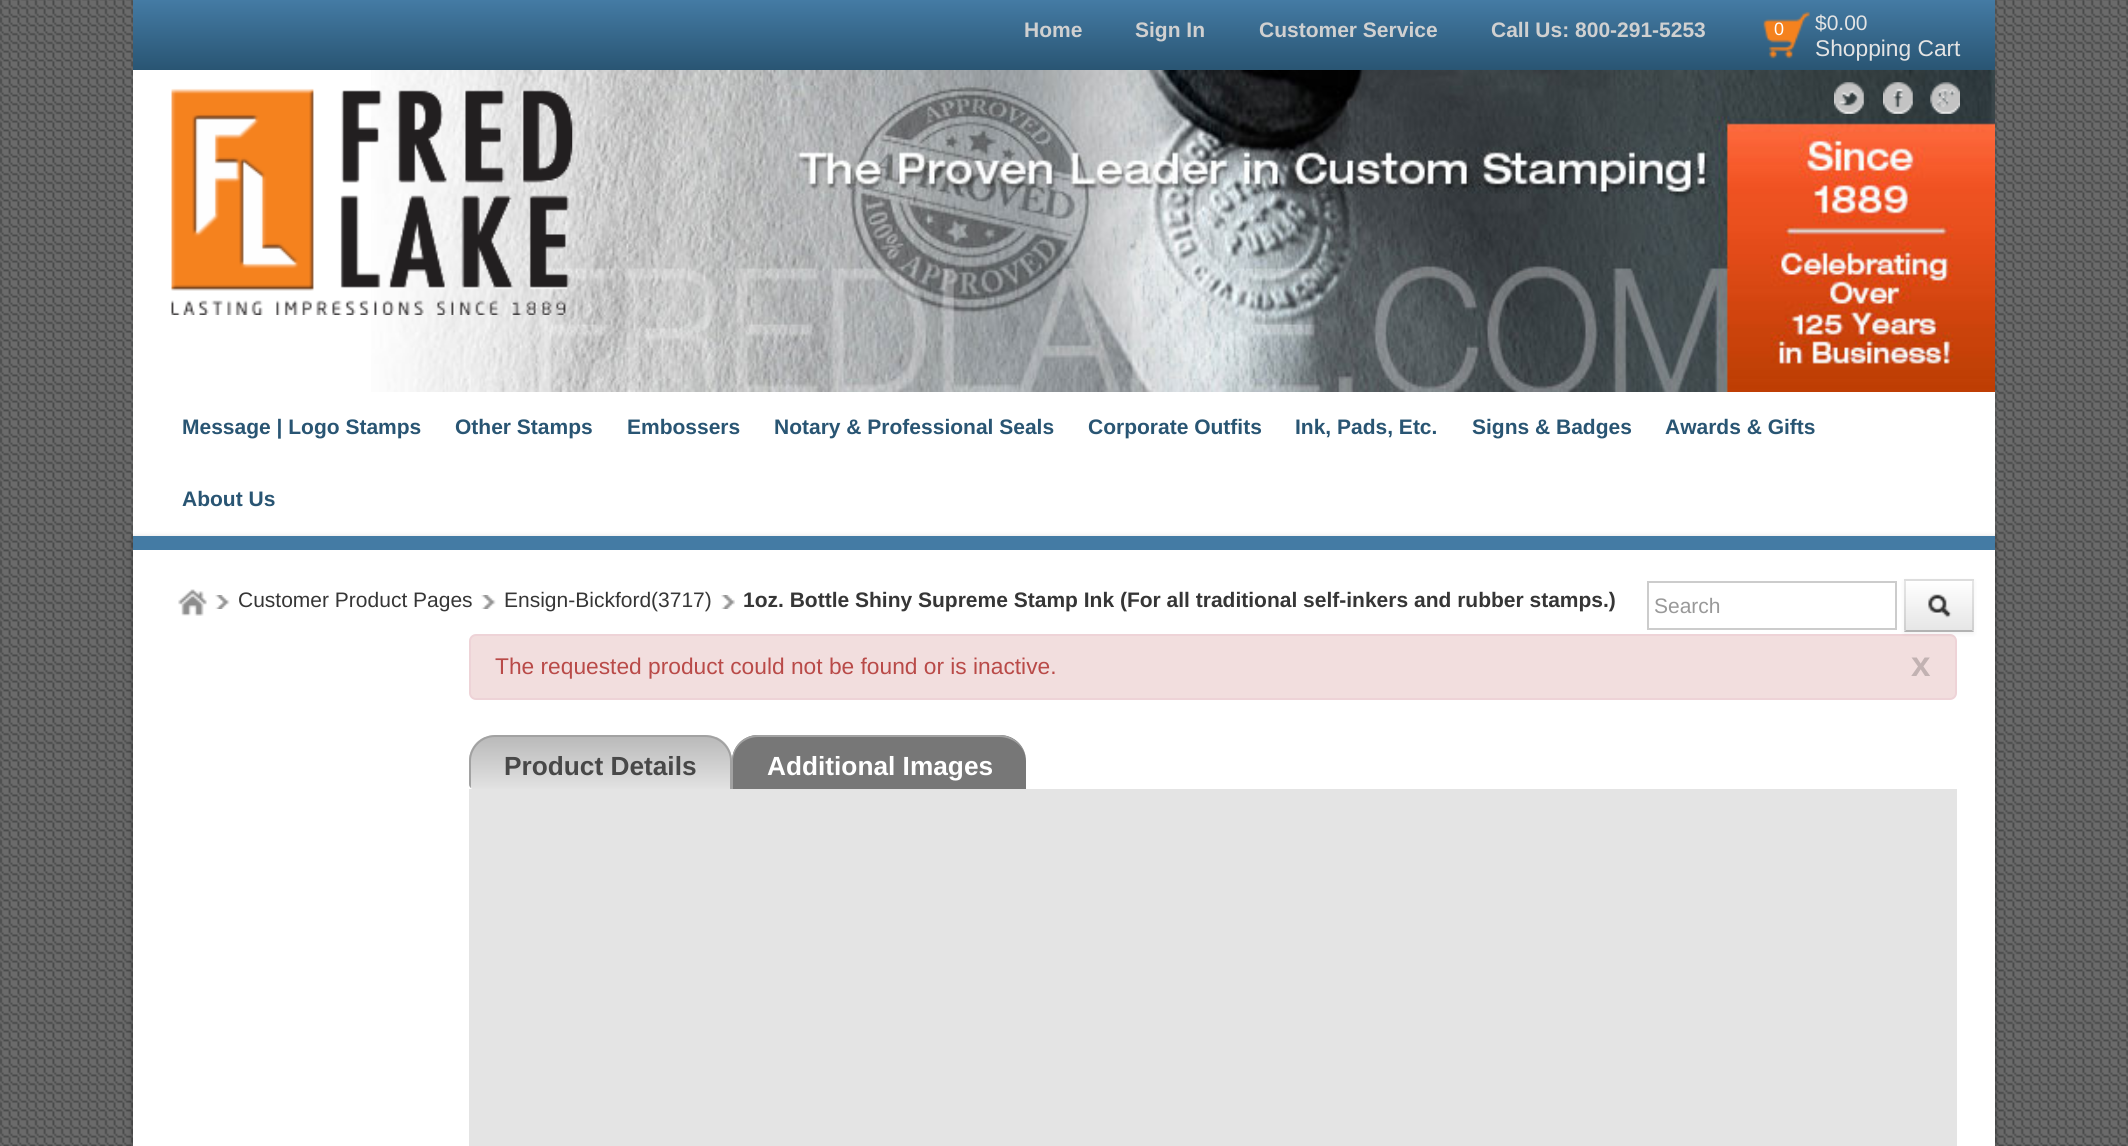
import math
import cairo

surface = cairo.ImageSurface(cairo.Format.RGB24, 2128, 1146)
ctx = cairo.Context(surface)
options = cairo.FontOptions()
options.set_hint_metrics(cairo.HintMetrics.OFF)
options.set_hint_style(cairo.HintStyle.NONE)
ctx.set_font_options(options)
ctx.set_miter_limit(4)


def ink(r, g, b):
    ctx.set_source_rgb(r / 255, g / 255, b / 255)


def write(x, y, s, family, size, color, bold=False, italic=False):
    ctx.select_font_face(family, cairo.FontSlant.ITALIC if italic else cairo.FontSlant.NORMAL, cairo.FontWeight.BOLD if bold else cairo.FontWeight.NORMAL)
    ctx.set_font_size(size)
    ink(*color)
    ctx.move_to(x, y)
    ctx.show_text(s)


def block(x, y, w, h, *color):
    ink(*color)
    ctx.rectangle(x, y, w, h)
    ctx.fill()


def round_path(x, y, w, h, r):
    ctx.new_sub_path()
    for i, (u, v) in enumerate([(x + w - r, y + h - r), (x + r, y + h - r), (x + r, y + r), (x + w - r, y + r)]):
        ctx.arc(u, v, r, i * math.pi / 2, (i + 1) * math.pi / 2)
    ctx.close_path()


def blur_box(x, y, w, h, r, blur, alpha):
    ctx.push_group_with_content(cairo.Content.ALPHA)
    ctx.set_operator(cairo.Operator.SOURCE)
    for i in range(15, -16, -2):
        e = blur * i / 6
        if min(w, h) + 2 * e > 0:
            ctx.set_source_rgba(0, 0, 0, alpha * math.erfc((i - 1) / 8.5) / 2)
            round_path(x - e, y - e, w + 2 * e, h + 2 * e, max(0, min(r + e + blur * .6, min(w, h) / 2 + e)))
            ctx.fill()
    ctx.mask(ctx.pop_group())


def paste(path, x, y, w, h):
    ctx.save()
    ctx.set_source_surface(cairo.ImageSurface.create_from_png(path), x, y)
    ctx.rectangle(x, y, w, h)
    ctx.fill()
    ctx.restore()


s1 = dict(family="Liberation Sans", size=21, color=(208, 208, 208), bold=True)
s2 = dict(family="Liberation Sans", size=18, color=(255, 255, 255))
s3 = dict(family="Liberation Sans", size=21, color=(228, 228, 228))
s4 = dict(family="Liberation Sans", size=22.75, color=(228, 228, 228))
s5 = dict(family="Liberation Sans", size=21, color=(41, 85, 115), bold=True)
s6 = dict(family="Liberation Sans", size=21, color=(54, 54, 54))
s7 = dict(family="Liberation Sans", size=21, color=(54, 54, 54), bold=True)
s8 = dict(family="Liberation Sans", size=21, color=(153, 153, 153))
s9 = dict(family="Liberation Sans", size=22.75, color=(185, 74, 72))
s10 = dict(family="Liberation Sans", size=35, color=(194, 178, 178), bold=True)
s11 = dict(family="Liberation Sans", size=26.25, color=(72, 72, 72), bold=True)
s12 = dict(family="Liberation Sans", size=26.25, color=(255, 255, 255), bold=True)

ink(255, 255, 255)
ctx.paint()
paste("pic1.png", 0, 0, 2128, 1146)
gradient = cairo.LinearGradient(1064, 0, 1064, 70)
gradient.add_color_stop_rgba(0, 0.267, 0.482, 0.643, 1)
gradient.add_color_stop_rgba(1, 0.161, 0.333, 0.451, 1)
ctx.set_source(gradient)
ctx.rectangle(133, 0, 1862, 70)
ctx.fill()
write(1024, 37, "Home", **s1)
write(1135, 37, "Sign In", **s1)
write(1259, 37, "Customer Service", **s1)
write(1491, 37, "Call Us: 800-291-5253", **s1)
paste("pic2.png", 1763, 11, 47, 48)
write(1774, 35, "0", **s2)
write(1815, 30, "$0.00", **s3)
write(1815, 56, "Shopping Cart", **s4)
block(133, 70, 238, 322, 255, 255, 255)
paste("pic3.png", 371, 70, 1624, 322)
paste("pic4.png", 171, 88, 402, 227)
paste("pic5.png", 1834, 82, 30, 32)
paste("pic6.png", 1883, 82, 30, 32)
paste("pic7.png", 1930, 82, 30, 32)
block(133, 392, 1862, 144, 255, 255, 255)
write(182, 434, "Message | Logo Stamps", **s5)
write(455, 434, "Other Stamps", **s5)
write(627, 434, "Embossers", **s5)
write(774, 434, "Notary & Professional Seals", **s5)
write(1088, 434, "Corporate Outfits", **s5)
write(1295, 434, "Ink, Pads, Etc.", **s5)
write(1472, 434, "Signs & Badges", **s5)
write(1665, 434, "Awards & Gifts", **s5)
write(182, 506, "About Us", **s5)
ink(0, 0, 0)
blur_box(133, 539, 1862, 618, 0, 3.5, 0.3)
block(133, 550, 1862, 596, 255, 255, 255)
block(133, 536, 1862, 14, 68, 123, 164)
paste("pic8.png", 178, 589, 29, 27)
paste("pic9.png", 215, 595, 15, 14)
write(238, 607, "Customer Product Pages", **s6)
paste("pic9.png", 481, 595, 15, 14)
write(504, 607, "Ensign-Bickford(3717)", **s6)
paste("pic10.png", 721, 595, 14, 14)
write(743, 607, "1oz. Bottle Shiny Supreme Stamp Ink (For all traditional self-inkers and rubber stamps.)", **s7)
ctx.rectangle(1648, 582, 248, 47)
ink(204, 204, 204)
ctx.stroke()
write(1654, 613, "Search", **s8)
ink(242, 222, 222)
round_path(470, 635, 1486, 64, 6)
ctx.fill_preserve()
ink(238, 211, 215)
ctx.stroke()
ink(0, 0, 0)
blur_box(1904, 581, 70, 53, 0, 2, 0.05)
block(1904, 579, 70, 53, 245, 245, 245)
gradient = cairo.LinearGradient(1939, 581, 1939, 630)
gradient.add_color_stop_rgba(0, 1, 1, 1, 1)
gradient.add_color_stop_rgba(1, 0.902, 0.902, 0.902, 1)
ctx.set_source(gradient)
ctx.rectangle(1904, 581, 70, 49)
ctx.fill()
ink(221, 221, 221)
ctx.new_path()
ctx.move_to(1904, 579)
ctx.line_to(1974, 579)
ctx.line_to(1972, 581)
ctx.line_to(1906, 581)
ctx.close_path()
ctx.fill()
ctx.set_source_rgba(0, 0, 0, 0.1)
ctx.new_path()
ctx.move_to(1974, 579)
ctx.line_to(1974, 632)
ctx.line_to(1972, 630)
ctx.line_to(1972, 581)
ctx.close_path()
ctx.fill()
ink(179, 179, 179)
ctx.new_path()
ctx.move_to(1974, 632)
ctx.line_to(1904, 632)
ctx.line_to(1906, 630)
ctx.line_to(1972, 630)
ctx.close_path()
ctx.fill()
ctx.set_source_rgba(0, 0, 0, 0.1)
ctx.new_path()
ctx.move_to(1904, 632)
ctx.line_to(1904, 579)
ctx.line_to(1906, 581)
ctx.line_to(1906, 630)
ctx.close_path()
ctx.fill()
paste("pic11.png", 1928, 594, 24, 24)
write(495, 674, "The requested product could not be found or is inactive.", **s9)
write(1911, 676, "x", **s10)
ctx.save()
round_path(469, 735, 1488, 54, 5)
ctx.clip()
ink(220, 220, 220)
ctx.new_path()
ctx.move_to(495, 735)
ctx.line_to(706, 735)
ctx.curve_to(720.5, 735, 732, 746.5, 732, 761)
ctx.line_to(732, 789)
ctx.line_to(474, 789)
ctx.curve_to(471, 789, 469, 787, 469, 784)
ctx.line_to(469, 761)
ctx.curve_to(469, 746.5, 480.5, 735, 495, 735)
ctx.close_path()
ctx.fill()
ctx.restore()
ctx.save()
round_path(469, 735, 1488, 54, 5)
ctx.clip()
ctx.new_path()
ctx.move_to(495, 735)
ctx.line_to(706, 735)
ctx.curve_to(720.5, 735, 732, 746.5, 732, 761)
ctx.line_to(732, 789)
ctx.line_to(469, 789)
ctx.line_to(469, 761)
ctx.curve_to(469, 746.5, 480.5, 735, 495, 735)
ctx.close_path()
ctx.clip()
gradient = cairo.LinearGradient(600, 737, 600, 789)
gradient.add_color_stop_rgba(0, 0.729, 0.729, 0.729, 1)
gradient.add_color_stop_rgba(1, 0.886, 0.886, 0.886, 1)
ctx.set_source(gradient)
ctx.new_path()
ctx.move_to(469, 737)
ctx.line_to(732, 737)
ctx.line_to(732, 789)
ctx.line_to(474, 789)
ctx.curve_to(471, 789, 469, 787, 469, 784)
ctx.close_path()
ctx.fill()
ctx.restore()
ink(162, 162, 162)
ctx.new_path()
ctx.move_to(495, 735)
ctx.curve_to(481, 735, 469, 747, 469, 761)
ctx.line_to(469, 784)
ctx.curve_to(469, 786, 470, 787, 471, 788)
ctx.line_to(471, 761)
ctx.curve_to(471, 748, 482, 737, 495, 737)
ctx.line_to(705, 737)
ctx.curve_to(719, 737, 730, 748, 730, 761)
ctx.line_to(730, 789)
ctx.line_to(732, 789)
ctx.line_to(732, 761)
ctx.curve_to(732, 747, 720, 735, 705, 735)
ctx.close_path()
ctx.fill()
write(504, 775, "Product Details", **s11)
ink(119, 119, 119)
ctx.new_path()
ctx.move_to(758, 735)
ctx.line_to(1000, 735)
ctx.curve_to(1014.5, 735, 1026, 746.5, 1026, 761)
ctx.line_to(1026, 789)
ctx.line_to(732, 789)
ctx.line_to(732, 761)
ctx.curve_to(732, 746.5, 743.5, 735, 758, 735)
ctx.close_path()
ctx.fill()
ink(162, 162, 162)
ctx.set_fill_rule(cairo.FillRule.EVEN_ODD)
ctx.new_path()
ctx.move_to(758, 735)
ctx.line_to(999, 735)
ctx.curve_to(1014, 735, 1026, 747, 1026, 761)
ctx.line_to(1026, 789)
ctx.line_to(732, 789)
ctx.line_to(732, 761)
ctx.curve_to(732, 747, 743, 735, 758, 735)
ctx.close_path()
ctx.move_to(758, 737)
ctx.line_to(999, 737)
ctx.curve_to(1014, 737, 1026, 748, 1026, 761)
ctx.line_to(1026, 789)
ctx.line_to(733, 789)
ctx.line_to(733, 761)
ctx.curve_to(733, 748, 744, 737, 758, 737)
ctx.close_path()
ctx.fill()
write(767, 775, "Additional Images", **s12)
block(469, 789, 1488, 357, 228, 228, 228)
surface.write_to_png("screenshot.png")
